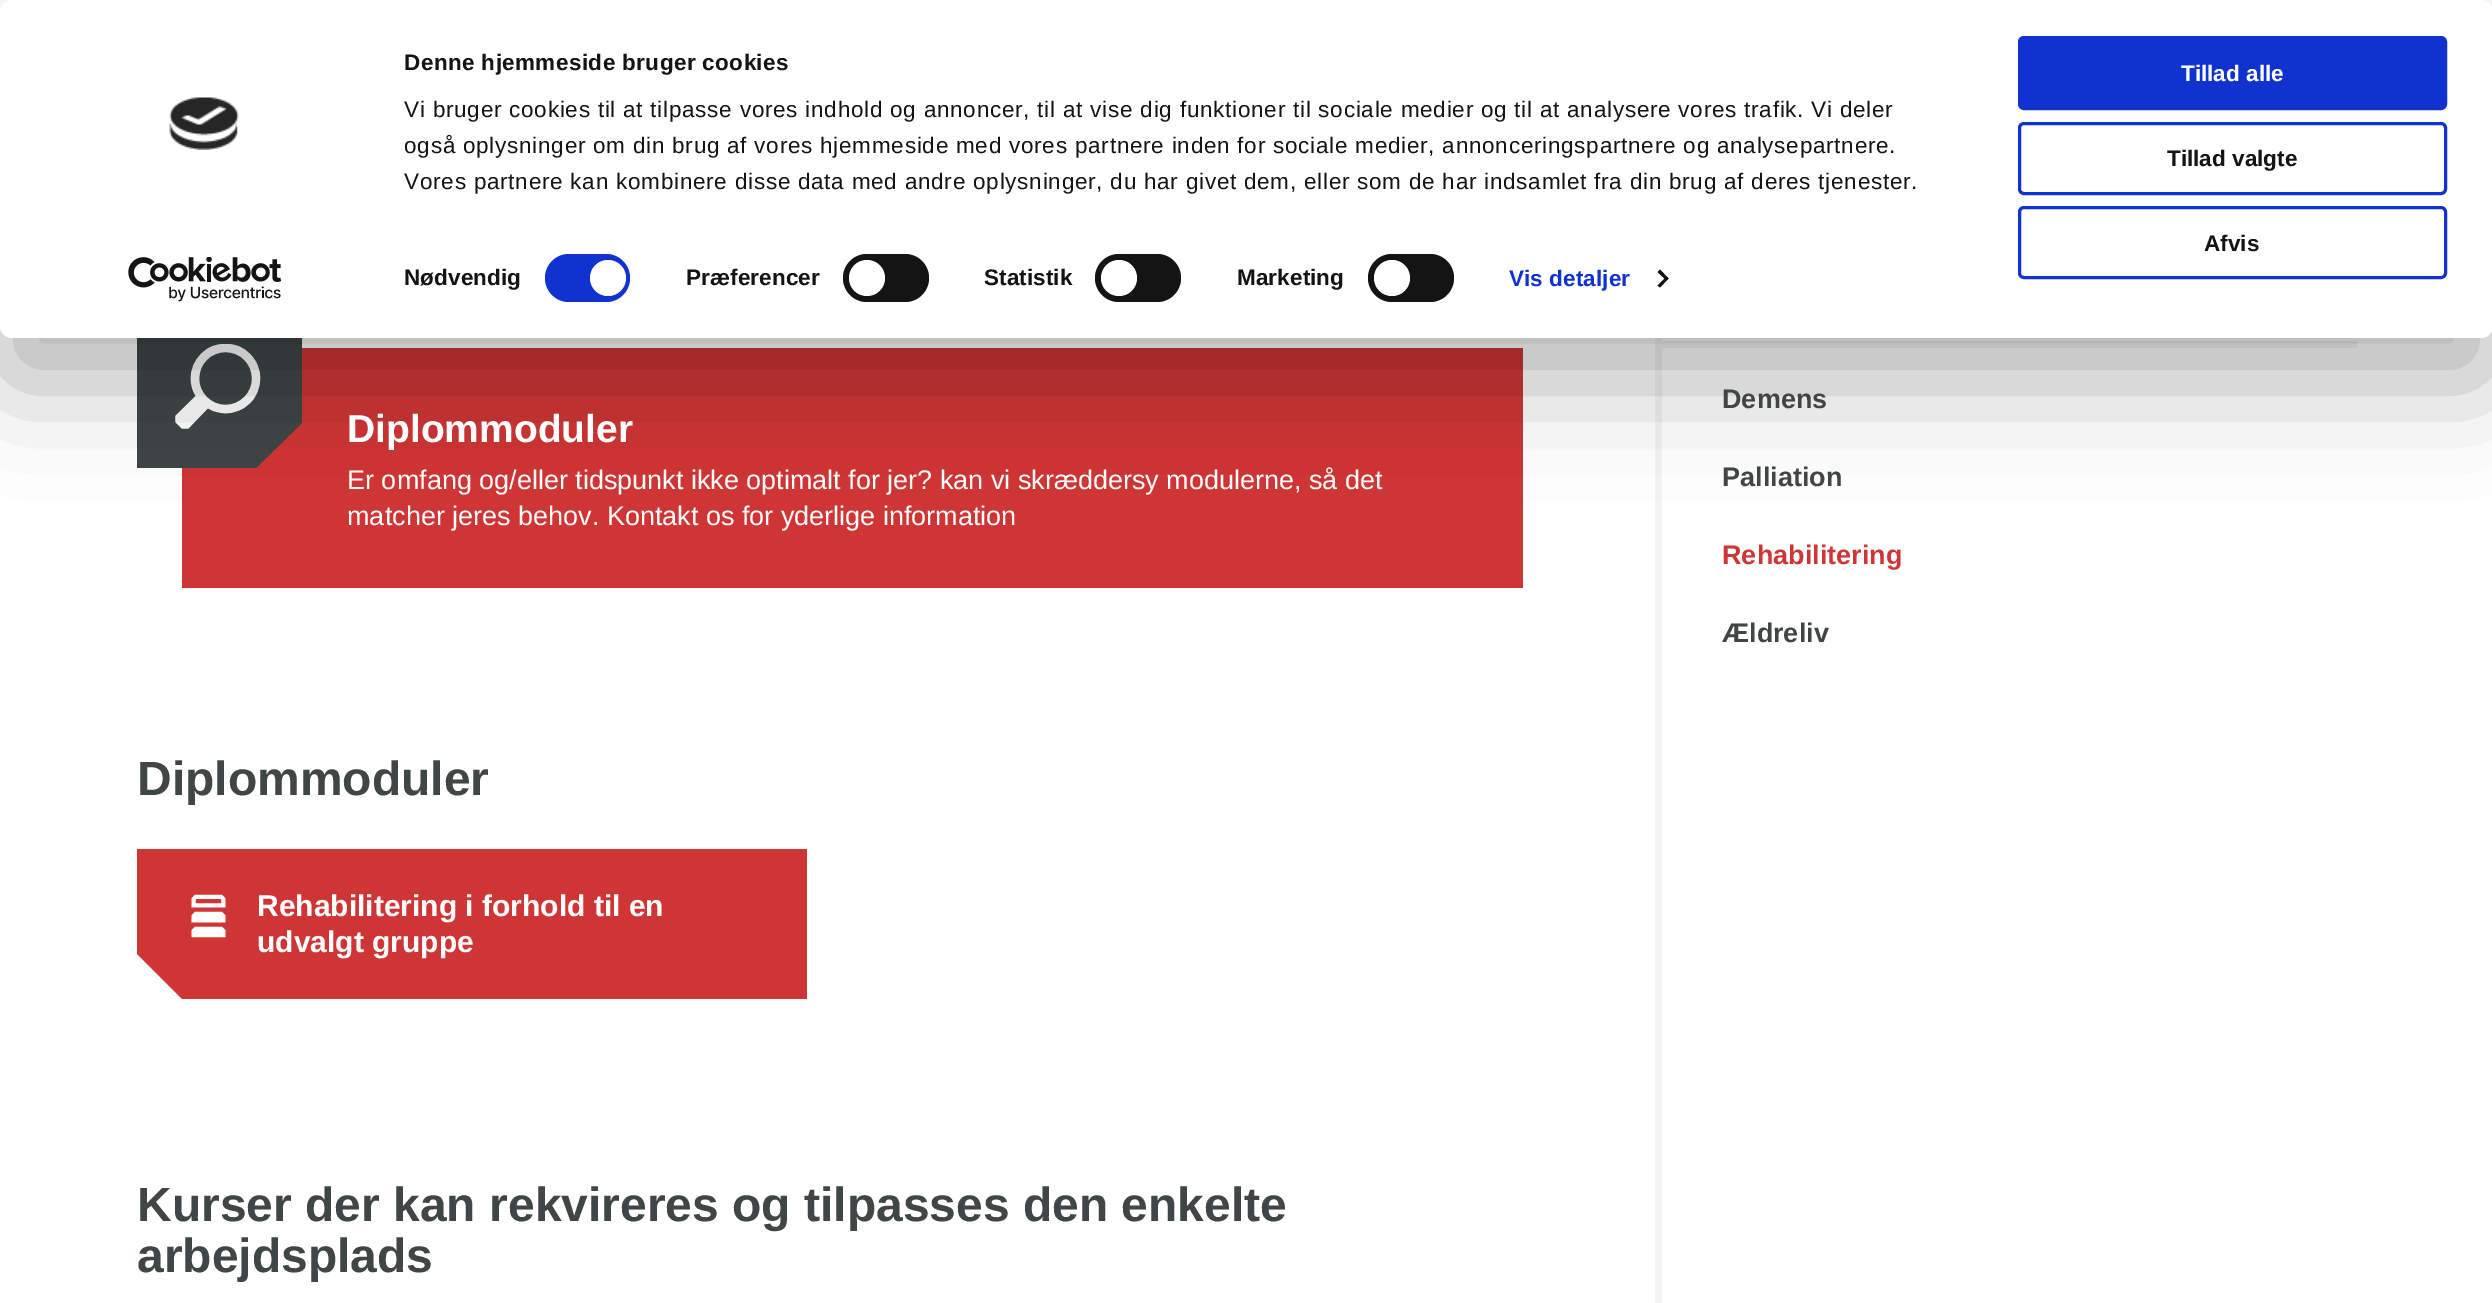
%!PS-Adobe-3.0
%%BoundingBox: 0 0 2492 1303
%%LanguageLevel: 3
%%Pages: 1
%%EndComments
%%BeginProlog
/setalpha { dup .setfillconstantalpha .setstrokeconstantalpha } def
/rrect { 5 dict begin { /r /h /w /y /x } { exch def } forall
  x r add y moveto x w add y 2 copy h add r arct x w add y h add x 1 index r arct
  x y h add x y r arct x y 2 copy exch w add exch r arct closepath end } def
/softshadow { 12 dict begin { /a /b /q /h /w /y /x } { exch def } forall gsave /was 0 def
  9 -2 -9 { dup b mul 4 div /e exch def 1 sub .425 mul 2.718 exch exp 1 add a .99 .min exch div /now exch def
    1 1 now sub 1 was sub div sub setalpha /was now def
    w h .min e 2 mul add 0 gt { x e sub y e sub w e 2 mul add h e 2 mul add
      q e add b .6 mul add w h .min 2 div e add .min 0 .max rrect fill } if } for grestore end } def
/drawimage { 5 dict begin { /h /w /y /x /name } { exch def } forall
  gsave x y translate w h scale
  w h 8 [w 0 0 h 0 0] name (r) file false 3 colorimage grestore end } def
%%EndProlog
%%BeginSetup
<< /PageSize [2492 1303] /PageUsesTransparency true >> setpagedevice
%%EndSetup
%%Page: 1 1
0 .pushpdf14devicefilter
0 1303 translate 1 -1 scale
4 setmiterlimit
1 setgray
0 0 2492 1303 rectfill
0.957 setgray
1655 338 7 965 rectfill
0.816 0.208 0.208 setrgbcolor
182 348 1341 240 rectfill
0.251 0.275 0.275 setrgbcolor
newpath 137 303 moveto 302 303 lineto 302 423 lineto 256 468 lineto 137 468 lineto closepath fill
(images/3.raw) 175 343 86 86 drawimage
0.957 setgray
1662 341 695 7 rectfill
0 setgray
0 45 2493 338 12 52.5 0.3 softshadow
1 setgray
0 0 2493 338 12 rrect fill
(images/1.raw) 169 97 70 53 drawimage
(images/2.raw) 128 257 154 45 drawimage
0.063 0.196 0.812 setrgbcolor
545 254 85 48 24 rrect fill
1 setgray
newpath 608 278 18 0 360 arc closepath fill
0.078 setgray
843 254 86 48 24 rrect fill
1 setgray
newpath 867 278 18 0 360 arc closepath fill
0.078 setgray
1095 254 86 48 24 rrect fill
1 setgray
newpath 1119 278 18 0 360 arc closepath fill
0.078 setgray
1368 254 86 48 24 rrect fill
1 setgray
newpath 1392 278 18 0 360 arc closepath fill
0.078 setgray
newpath 1660 269.5 moveto 1668.5 278.5 lineto 1666.5 280.5 lineto 1657.5 272 lineto closepath fill
newpath 1666.5 276.5 moveto 1668.5 278.5 lineto 1660 287.5 lineto 1657.5 285.5 lineto closepath fill
0.063 0.196 0.812 setrgbcolor
2019.5 37.5 426 71 4.5 rrect gsave fill grestore
3 setlinewidth
stroke
2019.5 123.5 426 70 4.5 rrect stroke
2019.5 207.5 426 70 4.5 rrect stroke
0.816 0.208 0.208 setrgbcolor
newpath 137 849 moveto 807 849 lineto 807 999 lineto 182 999 lineto 137 954 lineto closepath fill
(images/4.raw) 191 894 35 44 drawimage
/LiberationSans-Bold [22.5 0 0 -22.5 0 0] selectfont
0.078 setgray
404 70 moveto 0.4 0 (Denne hjemmeside bruger cookies) ashow
/LiberationSans-Regular [22.5 0 0 -22.5 0 0] selectfont
404 117 moveto 0.75 0 (Vi bruger cookies til at tilpasse vores indhold og annoncer, til at vise dig funktioner til sociale medier og til at analysere vores trafik. Vi deler) ashow
404 153 moveto 0.75 0 (også oplysninger om din brug af vores hjemmeside med vores partnere inden for sociale medier, annonceringspartnere og analysepartnere.) ashow
404 189 moveto 0.75 0 (Vores partnere kan kombinere disse data med andre oplysninger, du har givet dem, eller som de har indsamlet fra din brug af deres tjenester.) ashow
/LiberationSans-Bold [22.5 0 0 -22.5 0 0] selectfont
404 285 moveto 0.1 0 (Nødvendig) ashow
686 285 moveto 0.1 0 (Præferencer) ashow
984 285 moveto 0.1 0 (Statistik) ashow
1237 285 moveto 0.1 0 (Marketing) ashow
0.063 0.196 0.812 setrgbcolor
1509 286 moveto 0.1 0 (Vis detaljer) ashow
0.996 setgray
2181 81 moveto (Tillad alle) show
0.078 setgray
2167 166 moveto (Tillad valgte) show
2204 251 moveto (Afvis) show
/LiberationSans-Bold [39 0 0 -39 0 0] selectfont
0.996 setgray
347 442 moveto (Diplommoduler) show
/LiberationSans-Regular [27 0 0 -27 0 0] selectfont
347 489 moveto (Er omfang og/eller tidspunkt ikke optimalt for jer? kan vi skræddersy modulerne, så det) show
347 525 moveto (matcher jeres behov. Kontakt os for yderlige information) show
/LiberationSans-Bold [48 0 0 -48 0 0] selectfont
0.251 0.275 0.275 setrgbcolor
137 795 moveto (Diplommoduler) show
/LiberationSans-Bold [30 0 0 -30 0 0] selectfont
0.996 setgray
257 916 moveto (Rehabilitering i forhold til en) show
257 952 moveto (udvalgt gruppe) show
/LiberationSans-Bold [48 0 0 -48 0 0] selectfont
0.251 0.275 0.275 setrgbcolor
137 1221 moveto (Kurser der kan rekvireres og tilpasses den enkelte) show
137 1272 moveto (arbejdsplads) show
/LiberationSans-Bold [27 0 0 -27 0 0] selectfont
1722 408 moveto (Demens) show
1722 486 moveto (Palliation) show
0.816 0.208 0.208 setrgbcolor
1722 564 moveto (Rehabilitering) show
0.251 0.275 0.275 setrgbcolor
1722 642 moveto (Ældreliv) show
.poppdf14devicefilter showpage
%%EOF
